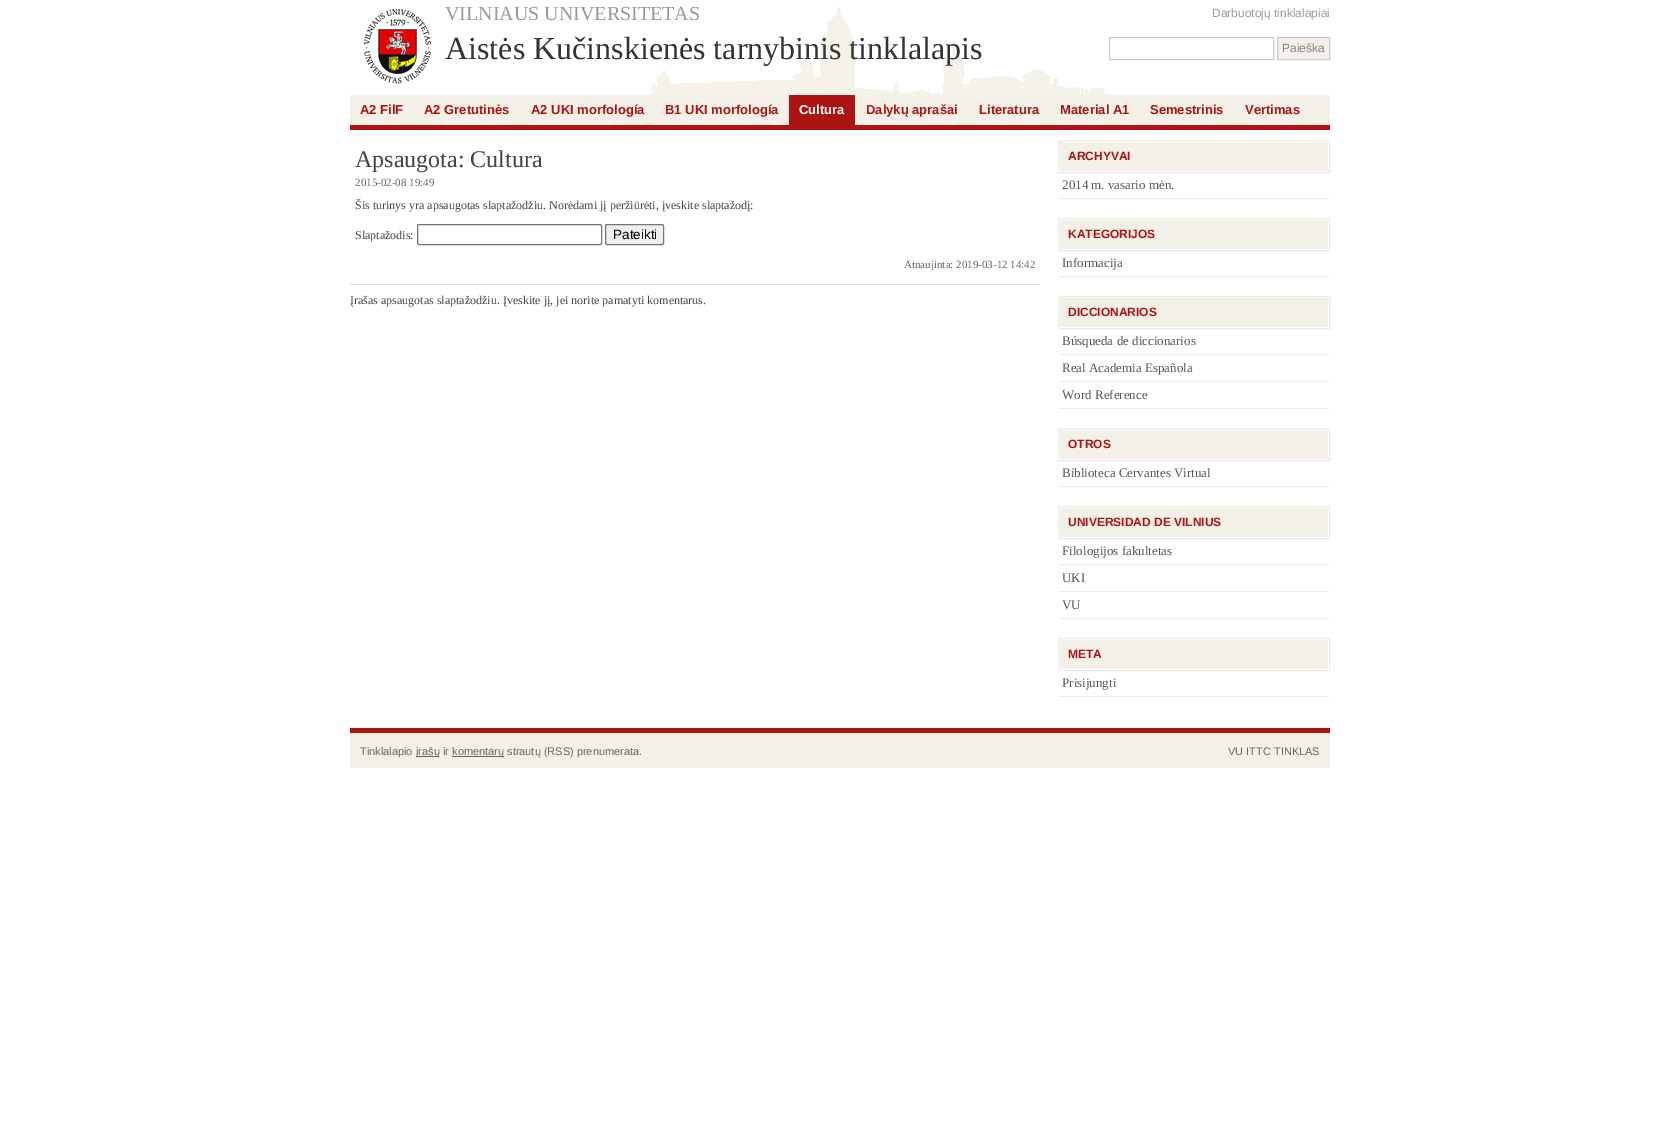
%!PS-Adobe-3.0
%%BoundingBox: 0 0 1680 1134
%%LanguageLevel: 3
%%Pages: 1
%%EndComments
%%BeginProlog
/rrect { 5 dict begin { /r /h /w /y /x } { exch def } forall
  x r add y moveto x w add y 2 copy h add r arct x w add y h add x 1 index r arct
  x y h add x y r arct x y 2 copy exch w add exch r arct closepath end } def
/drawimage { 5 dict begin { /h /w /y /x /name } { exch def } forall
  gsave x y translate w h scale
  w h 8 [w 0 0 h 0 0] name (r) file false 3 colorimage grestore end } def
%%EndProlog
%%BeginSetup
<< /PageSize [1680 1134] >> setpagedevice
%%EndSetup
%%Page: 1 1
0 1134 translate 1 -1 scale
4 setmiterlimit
1 setgray
0 0 1680 1134 rectfill
(images/1.raw) 651 7 458 88 drawimage
(images/2.raw) 364 9 67 75 drawimage
0.808 0.8 0.773 setrgbcolor
1109.5 37.5 164 22 rectstroke
0.957 0.945 0.914 setrgbcolor
newpath 1277.5 37.5 moveto 1329.5 37.5 lineto 1329.5 59.5 lineto 1277.5 59.5 lineto closepath gsave fill grestore
0.808 0.8 0.773 setrgbcolor
stroke
0.953 0.945 0.906 setrgbcolor
350 95 980 30 rectfill
0.675 0.078 0.075 setrgbcolor
350 125 980 5 rectfill
789 95 66 30 rectfill
0.463 setgray
417.5 224.5 184 20 1.5 rrect stroke
0.937 setgray
605.5 224.5 58 20 1.5 rrect gsave fill grestore
0.463 setgray
stroke
0.867 setgray
350 284 690 1 rectfill
0.953 0.945 0.906 setrgbcolor
1060 142 268 29 rectfill
0.922 setgray
1058.5 140.5 271 32 rectstroke
1059 198 270 1 rectfill
0.953 0.945 0.906 setrgbcolor
1060 220 268 29 rectfill
0.922 setgray
1058.5 218.5 271 32 rectstroke
1059 276 270 1 rectfill
0.953 0.945 0.906 setrgbcolor
1060 298 268 29 rectfill
0.922 setgray
1058.5 296.5 271 32 rectstroke
1059 354 270 1 rectfill
1059 381 270 1 rectfill
1059 408 270 1 rectfill
0.953 0.945 0.906 setrgbcolor
1060 430 268 29 rectfill
0.922 setgray
1058.5 428.5 271 32 rectstroke
1059 486 270 1 rectfill
0.953 0.945 0.906 setrgbcolor
1060 508 268 29 rectfill
0.922 setgray
1058.5 506.5 271 32 rectstroke
1059 564 270 1 rectfill
1059 591 270 1 rectfill
1059 618 270 1 rectfill
0.953 0.945 0.906 setrgbcolor
1060 640 268 29 rectfill
0.922 setgray
1058.5 638.5 271 32 rectstroke
1059 696 270 1 rectfill
0.953 0.945 0.906 setrgbcolor
350 733 980 35 rectfill
0.675 0.078 0.075 setrgbcolor
350 728 980 5 rectfill
0.4 setgray
416 756 23 1 rectfill
452 756 52 1 rectfill
/LiberationSerif-Regular [20 0 0 -20 0 0] selectfont
0.6 setgray
445 20 moveto (VILNIAUS UNIVERSITETAS) show
/LiberationSans-Regular [12 0 0 -12 0 0] selectfont
1212 17 moveto (Darbuotojų tinklalapiai) show
/LiberationSerif-Regular [32 0 0 -32 0 0] selectfont
0.2 setgray
445 59 moveto (Aistės Kučinskienės tarnybinis tinklalapis) show
/LiberationSans-Regular [12 0 0 -12 0 0] selectfont
0.518 0.514 0.498 setrgbcolor
1282 52 moveto (Paieška) show
/LiberationSans-Bold [13 0 0 -13 0 0] selectfont
0.675 0.078 0.075 setrgbcolor
360 114 moveto (A2 FilF) show
424 114 moveto (A2 Gretutinės) show
531 114 moveto (A2 UKI morfología) show
665 114 moveto (B1 UKI morfología) show
1 setgray
799 114 moveto (Cultura) show
0.675 0.078 0.075 setrgbcolor
866 114 moveto (Dalykų aprašai) show
979 114 moveto (Literatura) show
1060 114 moveto (Material A1) show
1150 114 moveto (Semestrinis) show
1245 114 moveto (Vertimas) show
/LiberationSerif-Regular [24 0 0 -24 0 0] selectfont
0.267 setgray
355 167 moveto (Apsaugota: Cultura) show
/LiberationSerif-Regular [11 0 0 -11 0 0] selectfont
0.4 setgray
355 186 moveto (2015-02-08 19:49) show
/LiberationSerif-Regular [12 0 0 -12 0 0] selectfont
0.267 setgray
355 209 moveto (Šis turinys yra apsaugotas slaptažodžiu. Norėdami jį peržiūrėti, įveskite slaptažodį:) show
355 239 moveto (Slaptažodis:) show
/LiberationSans-Regular [13.5 0 0 -13.5 0 0] selectfont
0 setgray
613 239 moveto (Pateikti) show
/LiberationSerif-Regular [11 0 0 -11 0 0] selectfont
0.4 setgray
904 268 moveto (Atnaujinta: 2019-03-12 14:42) show
/LiberationSerif-Regular [12 0 0 -12 0 0] selectfont
0.267 setgray
350 304 moveto (Įrašas apsaugotas slaptažodžiu. Įveskite jį, jei norite pamatyti komentarus.) show
/LiberationSans-Bold [12 0 0 -12 0 0] selectfont
0.675 0.078 0.075 setrgbcolor
1068 160 moveto (ARCHYVAI) show
/LiberationSerif-Regular [13 0 0 -13 0 0] selectfont
0.333 setgray
1062 189 moveto (2014 m. vasario mėn.) show
/LiberationSans-Bold [12 0 0 -12 0 0] selectfont
0.675 0.078 0.075 setrgbcolor
1068 238 moveto (KATEGORIJOS) show
/LiberationSerif-Regular [13 0 0 -13 0 0] selectfont
0.333 setgray
1062 267 moveto (Informacija) show
/LiberationSans-Bold [12 0 0 -12 0 0] selectfont
0.675 0.078 0.075 setrgbcolor
1068 316 moveto (DICCIONARIOS) show
/LiberationSerif-Regular [13 0 0 -13 0 0] selectfont
0.333 setgray
1062 345 moveto (Búsqueda de diccionarios) show
1062 372 moveto (Real Academia Española) show
1062 399 moveto (Word Reference) show
/LiberationSans-Bold [12 0 0 -12 0 0] selectfont
0.675 0.078 0.075 setrgbcolor
1068 448 moveto (OTROS) show
/LiberationSerif-Regular [13 0 0 -13 0 0] selectfont
0.333 setgray
1062 477 moveto (Biblioteca Cervantes Virtual) show
/LiberationSans-Bold [12 0 0 -12 0 0] selectfont
0.675 0.078 0.075 setrgbcolor
1068 526 moveto (UNIVERSIDAD DE VILNIUS) show
/LiberationSerif-Regular [13 0 0 -13 0 0] selectfont
0.333 setgray
1062 555 moveto (Filologijos fakultetas) show
1062 582 moveto (UKI) show
1062 609 moveto (VU) show
/LiberationSans-Bold [12 0 0 -12 0 0] selectfont
0.675 0.078 0.075 setrgbcolor
1068 658 moveto (META) show
/LiberationSerif-Regular [13 0 0 -13 0 0] selectfont
0.333 setgray
1062 687 moveto (Prisijungti) show
/LiberationSans-Regular [11 0 0 -11 0 0] selectfont
0.4 setgray
360 755 moveto (Tinklalapio) show
416 755 moveto (įrašų ir) show
452 755 moveto (komentarų strautų \(RSS\) prenumerata.) show
1228 755 moveto (VU ITTC TINKLAS) show
showpage
%%EOF
